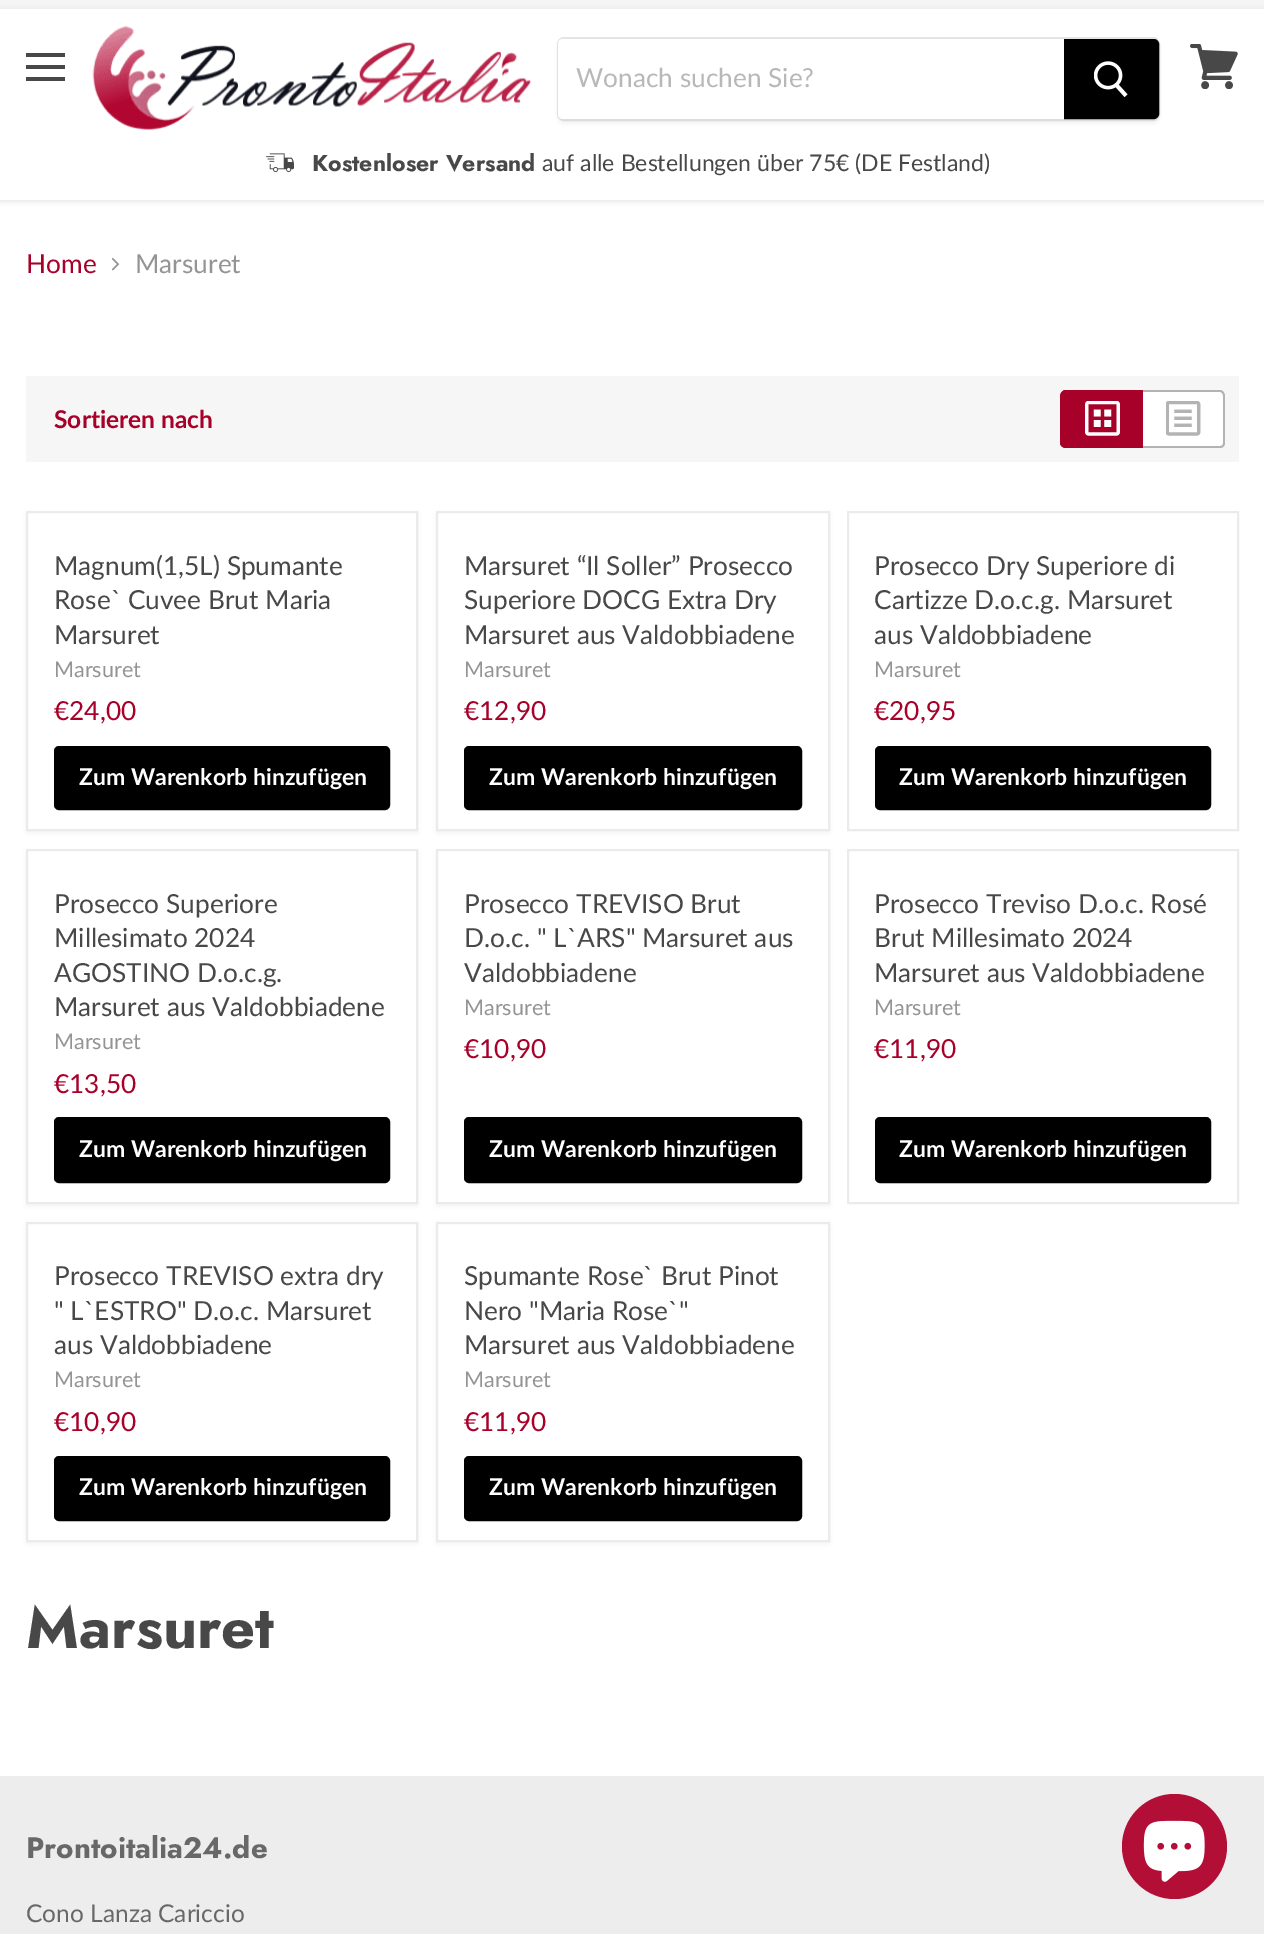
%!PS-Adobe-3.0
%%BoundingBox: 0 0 1264 1934
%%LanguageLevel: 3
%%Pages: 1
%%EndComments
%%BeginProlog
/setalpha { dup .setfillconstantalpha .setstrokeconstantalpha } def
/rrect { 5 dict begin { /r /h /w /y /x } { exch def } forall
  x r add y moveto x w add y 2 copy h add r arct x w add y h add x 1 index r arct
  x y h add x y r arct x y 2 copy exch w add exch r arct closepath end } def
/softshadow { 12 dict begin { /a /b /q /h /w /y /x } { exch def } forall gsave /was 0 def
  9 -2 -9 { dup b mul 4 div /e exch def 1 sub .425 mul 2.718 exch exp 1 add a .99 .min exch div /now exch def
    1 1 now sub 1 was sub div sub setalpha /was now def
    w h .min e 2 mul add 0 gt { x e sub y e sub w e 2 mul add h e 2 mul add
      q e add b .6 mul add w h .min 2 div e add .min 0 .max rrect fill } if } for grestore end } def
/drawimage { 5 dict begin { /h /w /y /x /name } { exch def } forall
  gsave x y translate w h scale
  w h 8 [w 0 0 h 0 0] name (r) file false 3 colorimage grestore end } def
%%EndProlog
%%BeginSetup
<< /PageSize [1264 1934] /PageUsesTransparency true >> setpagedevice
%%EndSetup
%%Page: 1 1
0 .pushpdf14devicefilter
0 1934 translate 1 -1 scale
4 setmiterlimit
1 setgray
0 0 1264 1934 rectfill
0.961 setgray
0 0 1264 9 rectfill
0.502 setgray
0 11 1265 190 0 3.5 0.25 softshadow
1 setgray
0 9 1264 191 rectfill
0.282 setgray
26 53 39 4 rectfill
26 65 39 4 rectfill
26 77 39 4 rectfill
(images/1.raw) 92 26 439 104 drawimage
0.502 setgray
557 40 603 84 7 2.5 0.11 softshadow
0.2 setalpha
2 setlinewidth
558 38 601 82 6 rrect stroke
1 setalpha
1 setgray
newpath 563 39 moveto 1064 39 lineto 1064 119 lineto 563 119 lineto 560 119 558 117 558 114 curveto 558 44 lineto 558 41 560 39 563 39 curveto closepath fill
0 setgray
newpath 1065 40 moveto 1154 40 lineto 1156 40 1158 42 1158 44 curveto 1158 114 lineto 1158 116 1156 118 1154 118 curveto 1065 118 lineto closepath gsave fill grestore
stroke
(images/2.raw) 1094 61 34 37 drawimage
(images/3.raw) 266 153 28 20 drawimage
(images/4.raw) 1190 44 48 45 drawimage
(images/5.raw) 111 257 9 14 drawimage
0.965 setgray
26 376 1213 86 rectfill
0.655 0.004 0.165 setrgbcolor
newpath 1066 390 moveto 1143 390 lineto 1143 448 lineto 1066 448 lineto 1063 448 1061 446 1061 443 curveto 1061 395 lineto 1061 392 1063 390 1066 390 curveto closepath fill
newpath 1066 390 moveto 1143 390 lineto 1143 448 lineto 1066 448 lineto 1063 448 1060 446 1060 443 curveto 1060 396 lineto 1060 393 1063 390 1066 390 curveto closepath 1066 392 moveto 1143 392 lineto 1143 446 lineto 1066 446 lineto 1064 446 1062 445 1062 443 curveto 1062 396 lineto 1062 394 1064 392 1066 392 curveto closepath eofill
(images/6.raw) 1085 401 35 35 drawimage
1 setgray
newpath 1143 390 moveto 1220 390 lineto 1223 390 1225 392 1225 395 curveto 1225 443 lineto 1225 446 1223 448 1220 448 curveto 1143 448 lineto closepath fill
0.702 setgray
newpath 1143 390 moveto 1220 390 lineto 1223 390 1225 393 1225 396 curveto 1225 443 lineto 1225 446 1223 448 1220 448 curveto 1143 448 lineto closepath 1143 392 moveto 1220 392 lineto 1222 392 1223 394 1223 396 curveto 1223 443 lineto 1223 445 1222 446 1220 446 curveto 1143 446 lineto closepath eofill
(images/7.raw) 1166 401 35 35 drawimage
0.502 setgray
26 513 392 320 0 3.5 0.11 softshadow
1 setgray
newpath 27 512 moveto 417 512 lineto 417 830 lineto 27 830 lineto closepath gsave fill grestore
0.922 setgray
stroke
0 setgray
55 747 334 62 4 rrect gsave fill grestore
stroke
0.502 setgray
436 513 394 320 0 3.5 0.11 softshadow
1 setgray
newpath 437 512 moveto 829 512 lineto 829 830 lineto 437 830 lineto closepath gsave fill grestore
0.922 setgray
stroke
0 setgray
465 747 336 62 4 rrect gsave fill grestore
stroke
0.922 setgray
848 512 390 318 rectstroke
0 setgray
876 747 334 62 4 rrect gsave fill grestore
stroke
0.502 setgray
26 851 392 355 0 3.5 0.11 softshadow
1 setgray
newpath 27 850 moveto 417 850 lineto 417 1203 lineto 27 1203 lineto closepath gsave fill grestore
0.922 setgray
stroke
0 setgray
55 1118 334 64 4 rrect gsave fill grestore
stroke
0.502 setgray
436 851 394 355 0 3.5 0.11 softshadow
1 setgray
newpath 437 850 moveto 829 850 lineto 829 1203 lineto 437 1203 lineto closepath gsave fill grestore
0.922 setgray
stroke
0 setgray
465 1118 336 64 4 rrect gsave fill grestore
stroke
0.922 setgray
848 850 390 353 rectstroke
0 setgray
876 1118 334 64 4 rrect gsave fill grestore
stroke
0.502 setgray
26 1223 392 321 0 3.5 0.11 softshadow
1 setgray
newpath 27 1223 moveto 417 1223 lineto 417 1541 lineto 27 1541 lineto closepath gsave fill grestore
0.922 setgray
stroke
0 setgray
55 1457 334 63 4 rrect gsave fill grestore
stroke
0.502 setgray
436 1223 394 321 0 3.5 0.11 softshadow
1 setgray
newpath 437 1223 moveto 829 1223 lineto 829 1541 lineto 437 1541 lineto closepath gsave fill grestore
0.922 setgray
stroke
0 setgray
465 1457 336 63 4 rrect gsave fill grestore
stroke
0.929 setgray
0 1776 1264 158 rectfill
0.702 0.055 0.212 setrgbcolor
newpath 1174.5 1846.5 52.5 0 360 arc closepath fill
(images/8.raw) 1143 1820 62 62 drawimage
/Lato-Regular [26.25 0 0 -26.25 0 0] selectfont
0.722 setgray
576 87 moveto (Wonach suchen Sie?) show
/Jost-Bold [23 0 0 -23 0 0] selectfont
0.282 setgray
312 171 moveto (Kostenloser Versand) show
/Lato-Regular [23 0 0 -23 0 0] selectfont
542 171 moveto (auf alle Bestellungen über 75€ \(DE Festland\)) show
/Lato-Regular [26.25 0 0 -26.25 0 0] selectfont
0.655 0.004 0.165 setrgbcolor
26 273 moveto (Home) show
0.58 setgray
135 273 moveto (Marsuret) show
/Lato-Bold [24.5 0 0 -24.5 0 0] selectfont
0.655 0.004 0.165 setrgbcolor
54 428 moveto (Sortieren nach) show
/Lato-Regular [26.25 0 0 -26.25 0 0] selectfont
0.282 setgray
54 575 moveto (Magnum\(1,5L\) Spumante) show
54 609 moveto (Rose` Cuvee Brut Maria) show
54 644 moveto (Marsuret) show
/Lato-Regular [21.5 0 0 -21.5 0 0] selectfont
0.58 setgray
54 677 moveto (Marsuret) show
/Lato-Regular [26.25 0 0 -26.25 0 0] selectfont
0.655 0.004 0.165 setrgbcolor
54 720 moveto (€24,00) show
/Lato-Bold [23 0 0 -23 0 0] selectfont
1 setgray
79 785 moveto (Zum Warenkorb hinzufügen) show
/Lato-Regular [26.25 0 0 -26.25 0 0] selectfont
0.282 setgray
464 575 moveto (Marsuret “Il Soller” Prosecco) show
464 609 moveto (Superiore DOCG Extra Dry) show
464 644 moveto (Marsuret aus Valdobbiadene) show
/Lato-Regular [21.5 0 0 -21.5 0 0] selectfont
0.58 setgray
464 677 moveto (Marsuret) show
/Lato-Regular [26.25 0 0 -26.25 0 0] selectfont
0.655 0.004 0.165 setrgbcolor
464 720 moveto (€12,90) show
/Lato-Bold [23 0 0 -23 0 0] selectfont
1 setgray
489 785 moveto (Zum Warenkorb hinzufügen) show
/Lato-Regular [26.25 0 0 -26.25 0 0] selectfont
0.282 setgray
874 575 moveto (Prosecco Dry Superiore di) show
874 609 moveto (Cartizze D.o.c.g. Marsuret) show
874 644 moveto (aus Valdobbiadene) show
/Lato-Regular [21.5 0 0 -21.5 0 0] selectfont
0.58 setgray
874 677 moveto (Marsuret) show
/Lato-Regular [26.25 0 0 -26.25 0 0] selectfont
0.655 0.004 0.165 setrgbcolor
874 720 moveto (€20,95) show
/Lato-Bold [23 0 0 -23 0 0] selectfont
1 setgray
899 785 moveto (Zum Warenkorb hinzufügen) show
/Lato-Regular [26.25 0 0 -26.25 0 0] selectfont
0.282 setgray
54 913 moveto (Prosecco Superiore) show
54 947 moveto (Millesimato 2024) show
54 982 moveto (AGOSTINO D.o.c.g.) show
54 1016 moveto (Marsuret aus Valdobbiadene) show
/Lato-Regular [21.5 0 0 -21.5 0 0] selectfont
0.58 setgray
54 1049 moveto (Marsuret) show
/Lato-Regular [26.25 0 0 -26.25 0 0] selectfont
0.655 0.004 0.165 setrgbcolor
54 1093 moveto (€13,50) show
/Lato-Bold [23 0 0 -23 0 0] selectfont
1 setgray
79 1157 moveto (Zum Warenkorb hinzufügen) show
/Lato-Regular [26.25 0 0 -26.25 0 0] selectfont
0.282 setgray
464 913 moveto (Prosecco TREVISO Brut) show
464 947 moveto (D.o.c. " L`ARS" Marsuret aus) show
464 982 moveto (Valdobbiadene) show
/Lato-Regular [21.5 0 0 -21.5 0 0] selectfont
0.58 setgray
464 1015 moveto (Marsuret) show
/Lato-Regular [26.25 0 0 -26.25 0 0] selectfont
0.655 0.004 0.165 setrgbcolor
464 1058 moveto (€10,90) show
/Lato-Bold [23 0 0 -23 0 0] selectfont
1 setgray
489 1157 moveto (Zum Warenkorb hinzufügen) show
/Lato-Regular [26.25 0 0 -26.25 0 0] selectfont
0.282 setgray
874 913 moveto (Prosecco Treviso D.o.c. Rosé) show
874 947 moveto (Brut Millesimato 2024) show
874 982 moveto (Marsuret aus Valdobbiadene) show
/Lato-Regular [21.5 0 0 -21.5 0 0] selectfont
0.58 setgray
874 1015 moveto (Marsuret) show
/Lato-Regular [26.25 0 0 -26.25 0 0] selectfont
0.655 0.004 0.165 setrgbcolor
874 1058 moveto (€11,90) show
/Lato-Bold [23 0 0 -23 0 0] selectfont
1 setgray
899 1157 moveto (Zum Warenkorb hinzufügen) show
/Lato-Regular [26.25 0 0 -26.25 0 0] selectfont
0.282 setgray
54 1285 moveto (Prosecco TREVISO extra dry) show
54 1320 moveto (" L`ESTRO" D.o.c. Marsuret) show
54 1354 moveto (aus Valdobbiadene) show
/Lato-Regular [21.5 0 0 -21.5 0 0] selectfont
0.58 setgray
54 1387 moveto (Marsuret) show
/Lato-Regular [26.25 0 0 -26.25 0 0] selectfont
0.655 0.004 0.165 setrgbcolor
54 1431 moveto (€10,90) show
/Lato-Bold [23 0 0 -23 0 0] selectfont
1 setgray
79 1495 moveto (Zum Warenkorb hinzufügen) show
/Lato-Regular [26.25 0 0 -26.25 0 0] selectfont
0.282 setgray
464 1285 moveto (Spumante Rose` Brut Pinot) show
464 1320 moveto (Nero "Maria Rose`") show
464 1354 moveto (Marsuret aus Valdobbiadene) show
/Lato-Regular [21.5 0 0 -21.5 0 0] selectfont
0.58 setgray
464 1387 moveto (Marsuret) show
/Lato-Regular [26.25 0 0 -26.25 0 0] selectfont
0.655 0.004 0.165 setrgbcolor
464 1431 moveto (€11,90) show
/Lato-Bold [23 0 0 -23 0 0] selectfont
1 setgray
489 1495 moveto (Zum Warenkorb hinzufügen) show
/Jost-Bold [59.5 0 0 -59.5 0 0] selectfont
0.282 setgray
26 1648 moveto (Marsuret) show
/Jost-Bold [29.5 0 0 -29.5 0 0] selectfont
0.408 setgray
26 1858 moveto (Prontoitalia24.de) show
/Lato-Regular [24.5 0 0 -24.5 0 0] selectfont
26 1922 moveto (Cono Lanza Cariccio) show
.poppdf14devicefilter showpage
%%EOF
